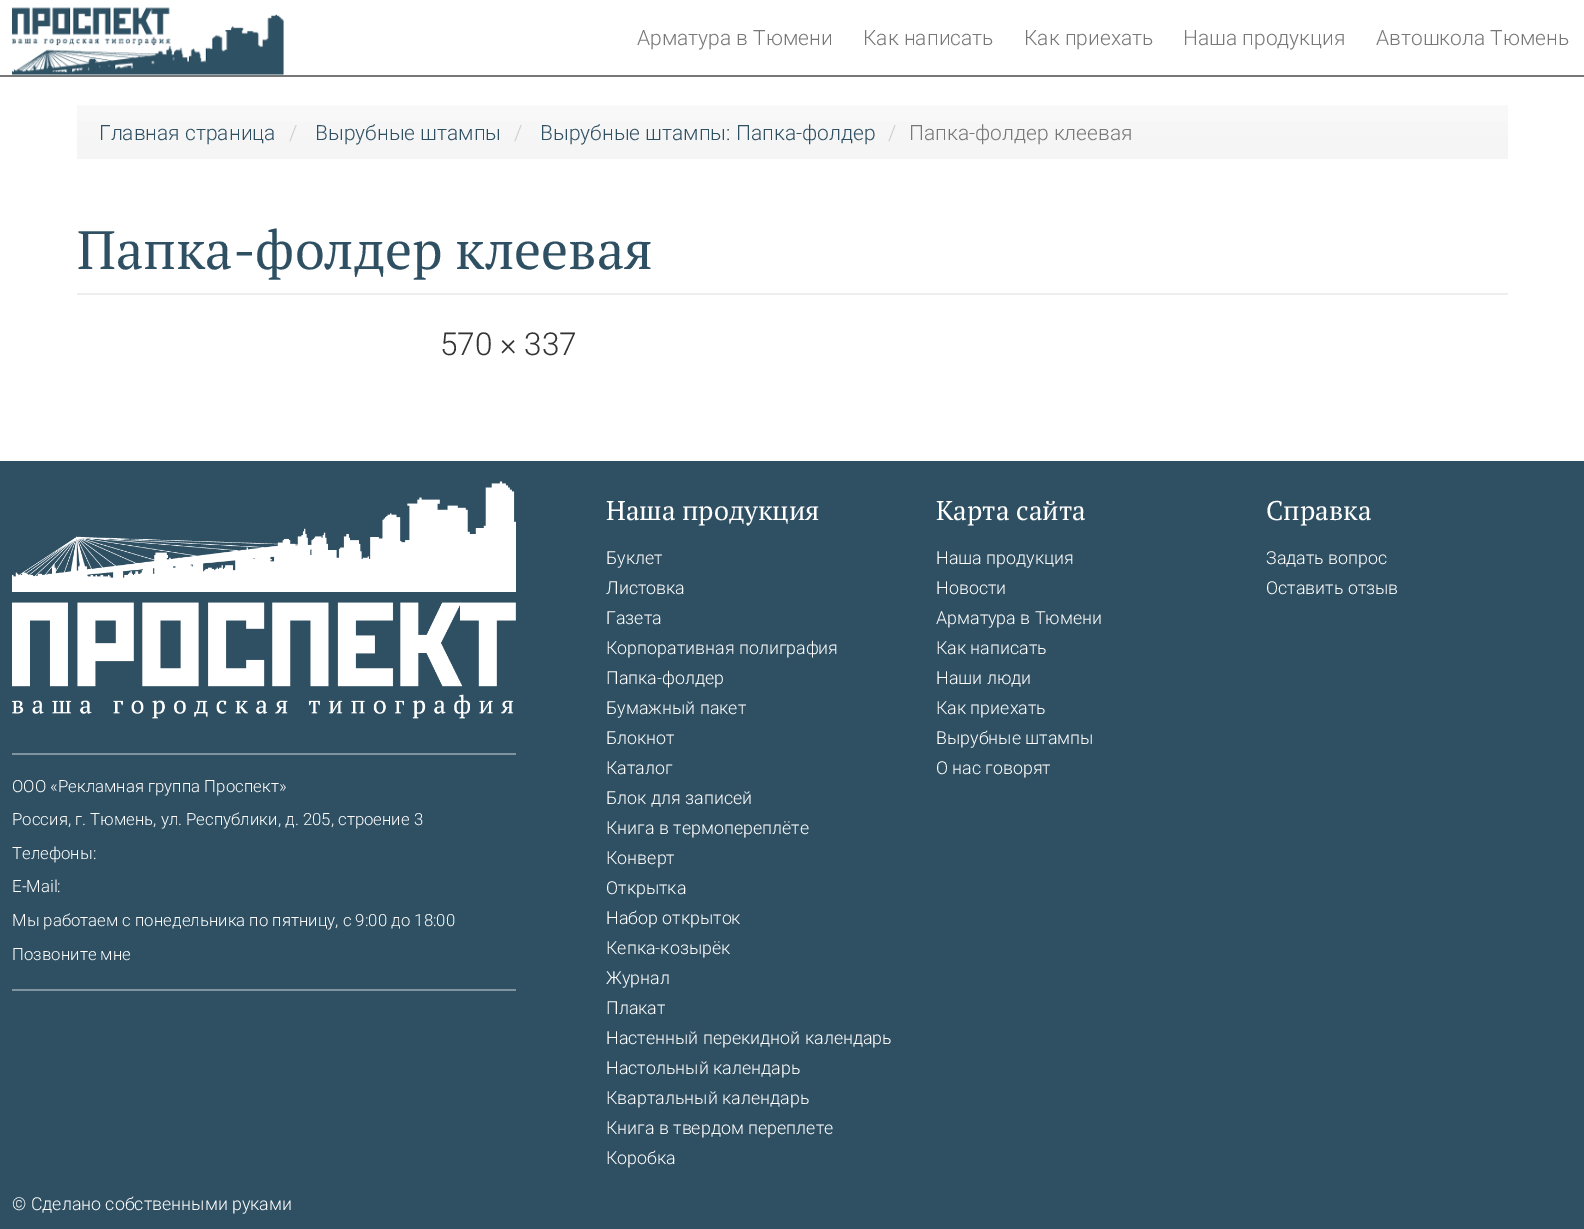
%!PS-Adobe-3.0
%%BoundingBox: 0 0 1584 1229
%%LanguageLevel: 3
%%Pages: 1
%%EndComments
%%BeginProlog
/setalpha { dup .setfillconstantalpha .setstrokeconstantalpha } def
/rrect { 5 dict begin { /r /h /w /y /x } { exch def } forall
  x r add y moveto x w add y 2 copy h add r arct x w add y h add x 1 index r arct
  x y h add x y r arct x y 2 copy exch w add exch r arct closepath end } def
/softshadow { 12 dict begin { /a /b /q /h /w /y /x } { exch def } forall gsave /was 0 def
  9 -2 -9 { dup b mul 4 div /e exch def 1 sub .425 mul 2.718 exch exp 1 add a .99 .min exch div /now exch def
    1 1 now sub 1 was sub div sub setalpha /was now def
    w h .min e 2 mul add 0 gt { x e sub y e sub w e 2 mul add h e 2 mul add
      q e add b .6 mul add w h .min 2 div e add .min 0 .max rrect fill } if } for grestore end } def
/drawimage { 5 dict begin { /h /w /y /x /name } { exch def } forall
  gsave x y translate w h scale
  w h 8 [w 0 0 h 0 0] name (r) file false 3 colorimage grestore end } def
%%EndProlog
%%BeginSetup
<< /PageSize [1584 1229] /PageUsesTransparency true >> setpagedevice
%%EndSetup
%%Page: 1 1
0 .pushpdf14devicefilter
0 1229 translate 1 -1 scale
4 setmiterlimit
1 setgray
0 0 1584 1229 rectfill
0.961 setgray
77 105 1431 54 rectfill
gsave
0 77 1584 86 rectclip
1 setgray
0 21 1584 77 0 31.5 1 softshadow
grestore
0.467 setgray
0 75 1584 2 rectfill
(images/1.raw) 12 7 272 68 drawimage
0.933 setgray
77 293 1431 2 rectfill
0.184 0.314 0.388 setrgbcolor
0 461 1584 768 rectfill
(images/2.raw) 12 481 504 238 drawimage
0.498 0.58 0.627 setrgbcolor
12 753 504 2 rectfill
12 989 504 2 rectfill
/Roboto-Light [21 0 0 -21 0 0] selectfont
0.467 setgray
637 45 moveto (Арматура в Тюмени) show
863 45 moveto (Как написать) show
1024 45 moveto (Как приехать) show
1183 45 moveto (Наша продукция) show
1376 45 moveto (Автошкола Тюмень) show
0.184 0.314 0.388 setrgbcolor
99 140 moveto (Главная страница) show
0.8 setgray
289 140 moveto (/) show
0.184 0.314 0.388 setrgbcolor
315 140 moveto (Вырубные штампы) show
0.8 setgray
514 140 moveto (/) show
0.184 0.314 0.388 setrgbcolor
540 140 moveto (Вырубные штампы: Папка-фолдер) show
0.8 setgray
888 140 moveto (/) show
0.467 setgray
909 140 moveto (Папка-фолдер клеевая) show
/PTSerif-Regular [54 0 0 -54 0 0] selectfont
0.184 0.314 0.388 setrgbcolor
77 269 moveto (Папка-фолдер клеевая) show
/Roboto-Light [31.5 0 0 -31.5 0 0] selectfont
0.2 setgray
440 355 moveto (570 × 337) show
/Roboto-Light [16.8 0 0 -16.8 0 0] selectfont
1 setgray
12 792 moveto (ООО «Рекламная группа Проспект») show
12 825 moveto (Россия, г. Тюмень, ул. Республики, д. 205, строение 3) show
12 859 moveto (Телефоны:) show
12 892 moveto (E-Mail:) show
12 926 moveto (Мы работаем с понедельника по пятницу, с 9:00 до 18:00) show
12 960 moveto (Позвоните мне) show
/PTSerif-Regular [27 0 0 -27 0 0] selectfont
606 520 moveto (Наша продукция) show
/Roboto-Light [17.8 0 0 -17.8 0 0] selectfont
606 564 moveto (Буклет) show
606 594 moveto (Листовка) show
606 624 moveto (Газета) show
606 654 moveto (Корпоративная полиграфия) show
606 684 moveto (Папка-фолдер) show
606 714 moveto (Бумажный пакет) show
606 744 moveto (Блокнот) show
606 774 moveto (Каталог) show
606 804 moveto (Блок для записей) show
606 834 moveto (Книга в термопереплёте) show
606 864 moveto (Конверт) show
606 894 moveto (Открытка) show
606 924 moveto (Набор открыток) show
606 954 moveto (Кепка-козырёк) show
606 984 moveto (Журнал) show
606 1014 moveto (Плакат) show
606 1044 moveto (Настенный перекидной календарь) show
606 1074 moveto (Настольный календарь) show
606 1104 moveto (Квартальный календарь) show
606 1134 moveto (Книга в твердом переплете) show
606 1164 moveto (Коробка) show
/PTSerif-Regular [27 0 0 -27 0 0] selectfont
936 520 moveto (Карта сайта) show
/Roboto-Light [17.8 0 0 -17.8 0 0] selectfont
936 564 moveto (Наша продукция) show
936 594 moveto (Новости) show
936 624 moveto (Арматура в Тюмени) show
936 654 moveto (Как написать) show
936 684 moveto (Наши люди) show
936 714 moveto (Как приехать) show
936 744 moveto (Вырубные штампы) show
936 774 moveto (О нас говорят) show
/PTSerif-Regular [27 0 0 -27 0 0] selectfont
1266 520 moveto (Справка) show
/Roboto-Light [17.8 0 0 -17.8 0 0] selectfont
1266 564 moveto (Задать вопрос) show
1266 594 moveto (Оставить отзыв) show
12 1210 moveto (© Сделано собственными руками) show
.poppdf14devicefilter showpage
%%EOF
